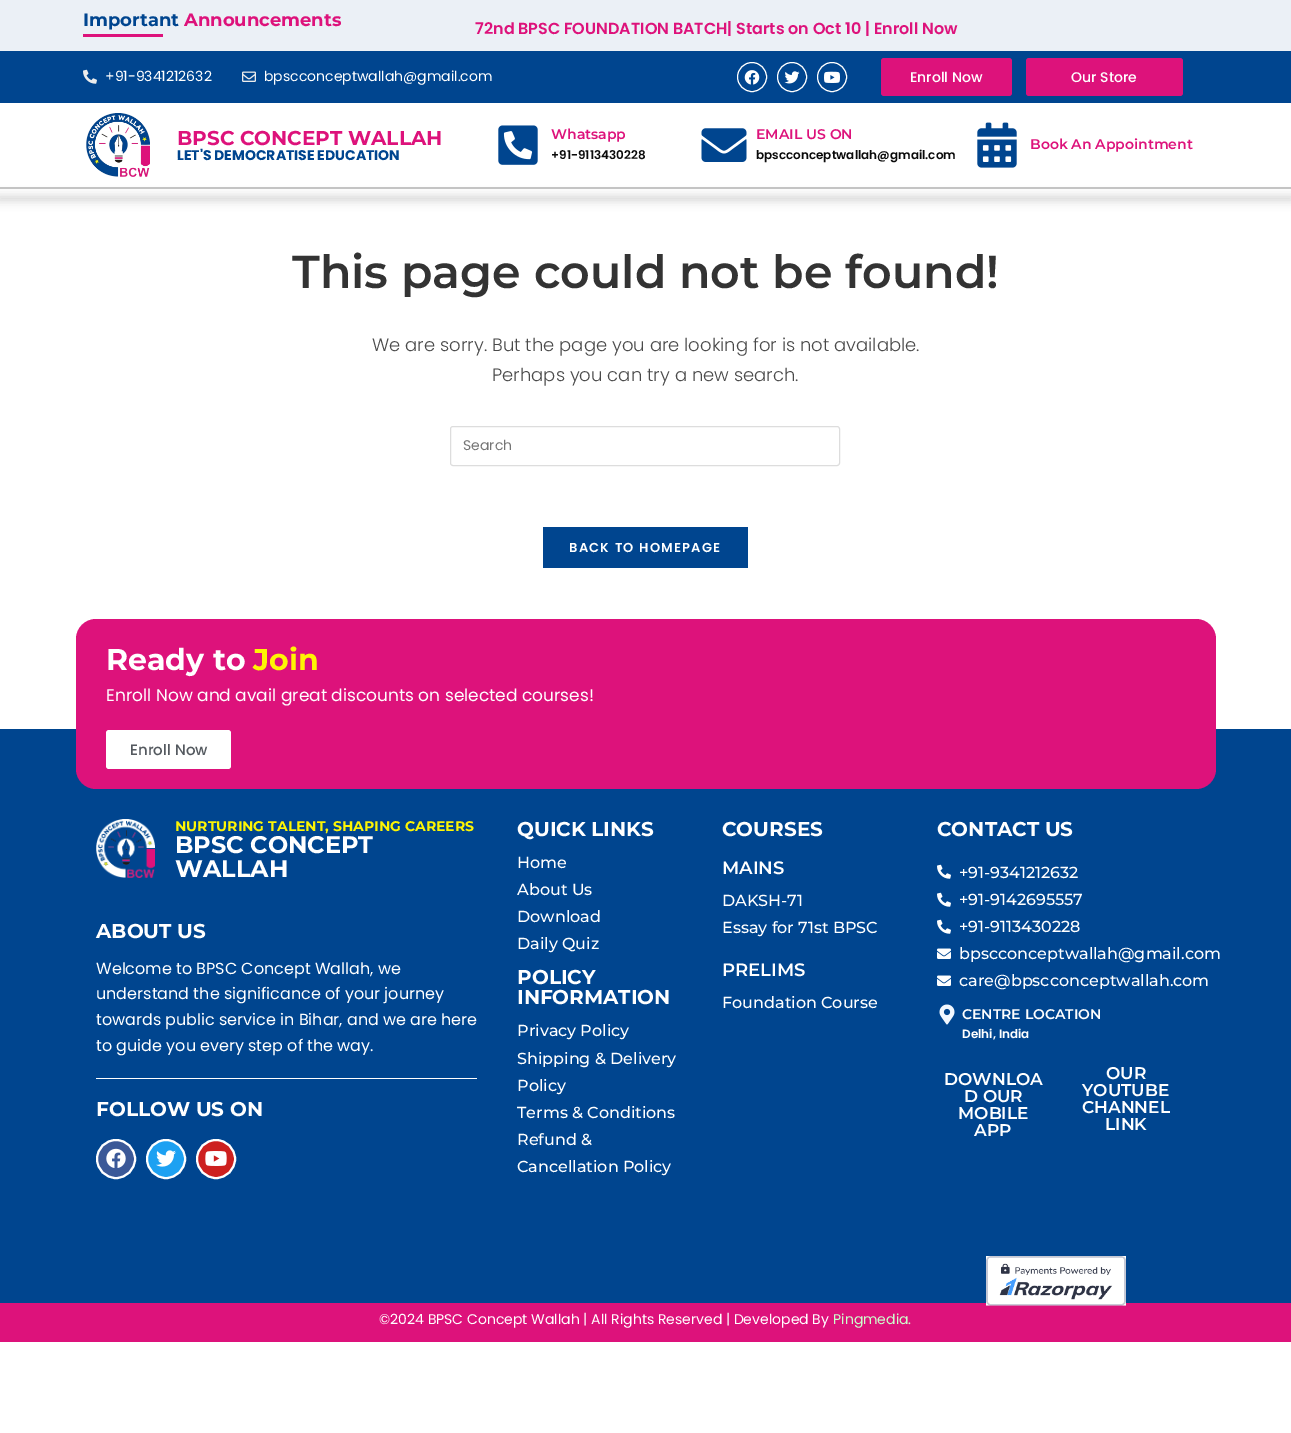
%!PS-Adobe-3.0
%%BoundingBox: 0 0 1291 1433
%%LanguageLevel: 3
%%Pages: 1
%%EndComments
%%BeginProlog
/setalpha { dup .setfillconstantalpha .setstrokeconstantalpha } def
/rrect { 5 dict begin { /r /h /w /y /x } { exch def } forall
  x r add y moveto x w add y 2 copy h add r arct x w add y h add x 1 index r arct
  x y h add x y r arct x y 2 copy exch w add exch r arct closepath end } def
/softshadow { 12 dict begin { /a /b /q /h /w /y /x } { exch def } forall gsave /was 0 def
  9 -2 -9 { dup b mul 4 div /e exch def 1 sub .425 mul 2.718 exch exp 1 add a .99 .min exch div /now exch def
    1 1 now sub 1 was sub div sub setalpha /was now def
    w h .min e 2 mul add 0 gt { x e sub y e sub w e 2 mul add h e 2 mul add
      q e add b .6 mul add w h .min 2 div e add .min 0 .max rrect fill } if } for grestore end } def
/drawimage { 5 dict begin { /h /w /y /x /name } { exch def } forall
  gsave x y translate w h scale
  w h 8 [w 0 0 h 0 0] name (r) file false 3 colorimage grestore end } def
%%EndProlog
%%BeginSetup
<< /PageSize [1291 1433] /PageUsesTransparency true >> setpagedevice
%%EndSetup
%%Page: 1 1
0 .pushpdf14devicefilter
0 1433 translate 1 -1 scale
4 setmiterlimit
1 setgray
0 0 1291 1433 rectfill
0.922 0.941 0.965 setrgbcolor
0 0 1291 51 rectfill
0.867 0.071 0.482 setrgbcolor
83 34 80 3 rectfill
0 0.271 0.561 setrgbcolor
0 51 1291 52 rectfill
(images/1.raw) 83 69 14 15 drawimage
(images/2.raw) 242 71 14 11 drawimage
1 setgray
newpath 752 77 14.5 0 360 arc closepath stroke
(images/3.raw) 744 70 16 15 drawimage
newpath 792 77 14.5 0 360 arc closepath stroke
(images/4.raw) 784 71 16 13 drawimage
newpath 832 77 14.5 0 360 arc closepath stroke
(images/5.raw) 824 71 16 12 drawimage
0.867 0.071 0.482 setrgbcolor
881 58 131 38 3 rrect fill
1026 58 157 38 3 rrect fill
(images/6.raw) 86 113 64 64 drawimage
(images/7.raw) 498 125 40 40 drawimage
(images/8.raw) 701 128 46 34 drawimage
(images/9.raw) 977 122 40 46 drawimage
0 setgray
0 197 1291 3 0 5 0.19 softshadow
0.769 setgray
0 187 1291 2 rectfill
0.867 setgray
450.5 426.5 389 39 2.5 rrect stroke
0 0.271 0.561 setrgbcolor
543 527 205 41 rectfill
0 729 1291 574 rectfill
0.867 0.071 0.482 setrgbcolor
76 619 1140 170 20 rrect fill
1 setgray
106 730 125 39 3 rrect fill
(images/10.raw) 96 819 59 59 drawimage
96 1078 381 1 rectfill
0.231 0.349 0.596 setrgbcolor
newpath 116 1159 19 0 360 arc closepath gsave fill grestore
1 setgray
2 setlinewidth
stroke
(images/11.raw) 106 1148 20 20 drawimage
0.114 0.631 0.949 setrgbcolor
newpath 166 1159 19 0 360 arc closepath gsave fill grestore
1 setgray
stroke
(images/12.raw) 156 1150 20 17 drawimage
0.804 0.125 0.122 setrgbcolor
newpath 216 1159 19 0 360 arc closepath gsave fill grestore
1 setgray
stroke
(images/13.raw) 205 1151 22 15 drawimage
(images/14.raw) 937 864 14 15 drawimage
(images/14.raw) 937 892 14 15 drawimage
(images/14.raw) 937 919 14 15 drawimage
(images/15.raw) 937 948 14 11 drawimage
(images/15.raw) 937 975 14 11 drawimage
(images/16.raw) 939 1004 16 21 drawimage
0.867 0.071 0.482 setrgbcolor
0 1303 1291 39 rectfill
(images/17.raw) 986 1256 140 50 drawimage
/Montserrat-Bold [18 0 0 -18 0 0] selectfont
0 0.271 0.561 setrgbcolor
83 26 moveto (Important) show
0.867 0.071 0.482 setrgbcolor
184 26 moveto (Announcements) show
/Poppins-SemiBold [16 0 0 -16 0 0] selectfont
475 34 moveto (72nd BPSC FOUNDATION BATCH| Starts on Oct 10 | Enroll Now) show
/Poppins-Regular [14 0 0 -14 0 0] selectfont
1 setgray
105 81 moveto (+91-9341212632) show
264 81 moveto (bpscconceptwallah@gmail.com) show
/Poppins-Medium [14 0 0 -14 0 0] selectfont
910 82 moveto (Enroll Now) show
1071 82 moveto (Our Store) show
/Montserrat-Bold [20 0 0 -20 0 0] selectfont
0.867 0.071 0.482 setrgbcolor
177 145 moveto (BPSC CONCEPT WALLAH) show
/Poppins-Bold [14 0 0 -14 0 0] selectfont
0 0.271 0.561 setrgbcolor
177 160 moveto (LET'S DEMOCRATISE EDUCATION) show
/Montserrat-SemiBold [14 0 0 -14 0 0] selectfont
0.867 0.071 0.482 setrgbcolor
551 139 moveto (Whatsapp) show
/Poppins-SemiBold [12 0 0 -12 0 0] selectfont
0.039 setgray
551 159 moveto (+91-9113430228) show
/Montserrat-SemiBold [14 0 0 -14 0 0] selectfont
0.867 0.071 0.482 setrgbcolor
756 139 moveto (EMAIL US ON) show
/Poppins-SemiBold [12 0 0 -12 0 0] selectfont
0.039 setgray
756 159 moveto (bpscconceptwallah@gmail.com) show
/Montserrat-SemiBold [14 0 0 -14 0 0] selectfont
0.867 0.071 0.482 setrgbcolor
1030 149 moveto (Book An Appointment) show
/Montserrat-SemiBold [46 0 0 -46 0 0] selectfont
0.2 setgray
292 288 moveto (This page could not be found!) show
/Poppins-Light [18 0 0 -18 0 0] selectfont
0.29 setgray
372 351 moveto (We are sorry. But the page you are looking for is not available.) show
492 381 moveto (Perhaps you can try a new search.) show
/Poppins-Regular [14 0 0 -14 0 0] selectfont
0.459 setgray
463 450 moveto (Search) show
/Poppins-SemiBold [13 0 0 -13 0 0] selectfont
1 setgray
569 552 moveto 1.25 0 (BACK TO HOMEPAGE) ashow
/Montserrat-Bold [30 0 0 -30 0 0] selectfont
106 670 moveto (Ready to) show
0.996 0.961 0.012 setrgbcolor
253 670 moveto (Join) show
/Poppins-Regular [17 0 0 -17 0 0] selectfont
1 setgray
106 701 moveto (Enroll Now and avail great discounts on selected courses!) show
/Poppins-Medium [15 0 0 -15 0 0] selectfont
0.329 0.349 0.373 setrgbcolor
130 755 moveto (Enroll Now) show
/Montserrat-Bold [14 0 0 -14 0 0] selectfont
0.996 0.961 0.012 setrgbcolor
175 831 moveto (NURTURING TALENT, SHAPING CAREERS) show
/Montserrat-Bold [24 0 0 -24 0 0] selectfont
1 setgray
175 853 moveto (BPSC CONCEPT) show
175 877 moveto (WALLAH) show
/Montserrat-Bold [20 0 0 -20 0 0] selectfont
96 938 moveto (ABOUT US) show
/Poppins-Regular [16 0 0 -16 0 0] selectfont
96 974 moveto (Welcome to BPSC Concept Wallah, we) show
96 999 moveto (understand the significance of your journey) show
96 1025 moveto (towards public service in Bihar, and we are here) show
96 1051 moveto (to guide you every step of the way.) show
/Montserrat-Bold [20 0 0 -20 0 0] selectfont
96 1116 moveto (FOLLOW US ON) show
517 836 moveto (QUICK LINKS) show
/Montserrat-Medium [16 0 0 -16 0 0] selectfont
517 868 moveto (Home) show
517 895 moveto (About Us) show
517 922 moveto (Download) show
517 949 moveto (Daily Quiz) show
/Montserrat-Bold [20 0 0 -20 0 0] selectfont
517 984 moveto (POLICY) show
517 1004 moveto (INFORMATION) show
/Montserrat-Medium [16 0 0 -16 0 0] selectfont
517 1036 moveto (Privacy Policy) show
517 1064 moveto (Shipping & Delivery) show
517 1091 moveto (Policy) show
517 1118 moveto (Terms & Conditions) show
517 1145 moveto (Refund &) show
517 1172 moveto (Cancellation Policy) show
/Montserrat-Bold [20 0 0 -20 0 0] selectfont
722 836 moveto (COURSES) show
/Montserrat-SemiBold [18 0 0 -18 0 0] selectfont
722 874 moveto (MAINS) show
/Montserrat-Medium [16 0 0 -16 0 0] selectfont
722 906 moveto (DAKSH-71) show
722 933 moveto (Essay for 71st BPSC) show
/Montserrat-SemiBold [18 0 0 -18 0 0] selectfont
722 976 moveto (PRELIMS) show
/Montserrat-Medium [16 0 0 -16 0 0] selectfont
722 1008 moveto (Foundation Course) show
/Montserrat-Bold [20 0 0 -20 0 0] selectfont
937 836 moveto (CONTACT US) show
/Montserrat-Medium [16 0 0 -16 0 0] selectfont
959 878 moveto (+91-9341212632) show
959 905 moveto (+91-9142695557) show
959 932 moveto (+91-9113430228) show
959 959 moveto (bpscconceptwallah@gmail.com) show
959 986 moveto (care@bpscconceptwallah.com) show
/Montserrat-SemiBold [14 0 0 -14 0 0] selectfont
962 1019 moveto (CENTRE LOCATION) show
/Poppins-SemiBold [12 0 0 -12 0 0] selectfont
962 1038 moveto (Delhi, India) show
/Montserrat-SemiBold [17 0 0 -17 0 0] selectfont
944 1085 moveto (DOWNLOA) show
964 1102 moveto (D OUR) show
958 1119 moveto (MOBILE) show
974 1136 moveto (APP) show
1106 1079 moveto (OUR) show
1082 1096 moveto (YOUTUBE) show
1082 1113 moveto (CHANNEL) show
1105 1130 moveto (LINK) show
/Poppins-Regular [14 0 0 -14 0 0] selectfont
379 1324 moveto (©2024 BPSC Concept Wallah | All Rights Reserved | Developed By) show
0.8 1 0.8 setrgbcolor
833 1324 moveto (Pingmedia.) show
.poppdf14devicefilter showpage
%%EOF
